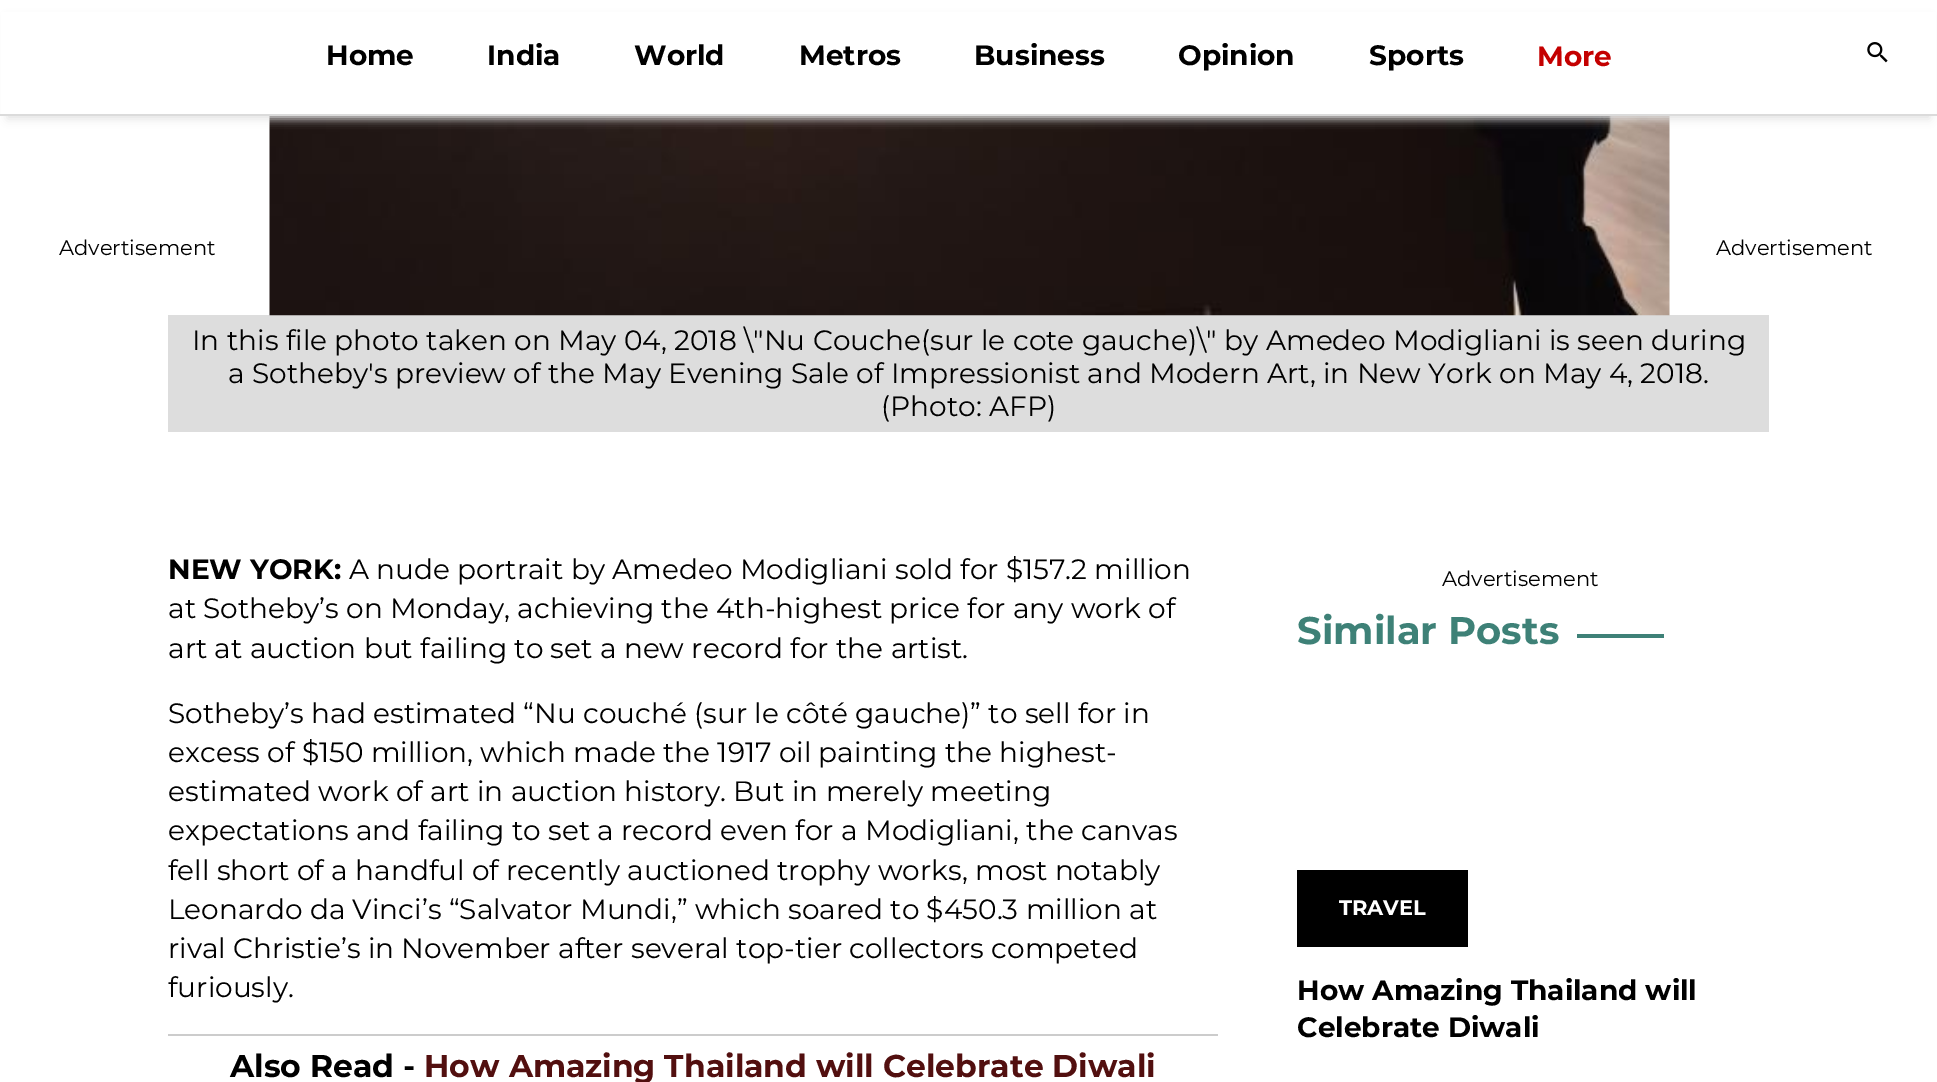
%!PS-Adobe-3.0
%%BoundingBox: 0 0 1937 1082
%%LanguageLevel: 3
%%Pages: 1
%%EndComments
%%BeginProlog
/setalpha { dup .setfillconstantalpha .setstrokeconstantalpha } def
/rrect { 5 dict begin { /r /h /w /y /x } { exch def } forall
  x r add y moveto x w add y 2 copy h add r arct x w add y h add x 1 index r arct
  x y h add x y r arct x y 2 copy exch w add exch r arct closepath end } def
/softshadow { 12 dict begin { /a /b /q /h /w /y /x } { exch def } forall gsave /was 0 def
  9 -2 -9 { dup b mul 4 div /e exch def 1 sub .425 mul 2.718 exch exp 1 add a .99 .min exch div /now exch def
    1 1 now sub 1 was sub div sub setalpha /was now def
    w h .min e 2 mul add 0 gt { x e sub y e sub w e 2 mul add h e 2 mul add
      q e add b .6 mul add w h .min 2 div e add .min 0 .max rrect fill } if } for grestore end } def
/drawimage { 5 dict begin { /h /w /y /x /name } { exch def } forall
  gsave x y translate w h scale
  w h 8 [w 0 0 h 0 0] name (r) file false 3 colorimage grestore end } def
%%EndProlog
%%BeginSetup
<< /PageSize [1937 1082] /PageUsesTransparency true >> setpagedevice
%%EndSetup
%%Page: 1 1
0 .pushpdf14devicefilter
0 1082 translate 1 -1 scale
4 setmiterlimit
1 setgray
0 0 1937 1082 rectfill
0.867 setgray
168 315 1601 117 rectfill
(images/2.raw) 269 116 1401 200 drawimage
0.882 setgray
7 18 1923 101 0 4.5 1 softshadow
1 setgray
1 12 1935 102 rectfill
0.859 setgray
0 114 1937 2 rectfill
(images/1.raw) 1867 42 21 21 drawimage
0.8 setgray
168 1034 1050 2 rectfill
0.243 0.506 0.467 setrgbcolor
1577 634 87 4 rectfill
0 setgray
1297 870 171 77 rectfill
/Montserrat-Regular [21 0 0 -21 0 0] selectfont
59 255 moveto (Advertisement) show
/Montserrat-Bold [28 0 0 -28 0 0] selectfont
326 65 moveto (Home) show
487 65 moveto (India) show
634 65 moveto (World) show
799 65 moveto (Metros) show
974 65 moveto (Business) show
1178 65 moveto (Opinion) show
1369 65 moveto (Sports) show
0.769 0 0 setrgbcolor
1537 66 moveto (More) show
/Montserrat-Regular [28 0 0 -28 0 0] selectfont
0 setgray
192 350 moveto (In this file photo taken on May 04, 2018 \\"Nu Couche\(sur le cote gauche\)\\" by Amedeo Modigliani is seen during) show
228 383 moveto (a Sotheby's preview of the May Evening Sale of Impressionist and Modern Art, in New York on May 4, 2018.) show
881 416 moveto (\(Photo: AFP\)) show
/Montserrat-Bold [28 0 0 -28 0 0] selectfont
168 579 moveto (NEW YORK:) show
/Montserrat-Regular [28 0 0 -28 0 0] selectfont
349 579 moveto (A nude portrait by Amedeo Modigliani sold for $157.2 million) show
168 618 moveto (at Sotheby’s on Monday, achieving the 4th-highest price for any work of) show
168 658 moveto (art at auction but failing to set a new record for the artist.) show
168 723 moveto (Sotheby’s had estimated “Nu couché \(sur le côté gauche\)” to sell for in) show
168 762 moveto (excess of $150 million, which made the 1917 oil painting the highest-) show
168 801 moveto (estimated work of art in auction history. But in merely meeting) show
168 840 moveto (expectations and failing to set a record even for a Modigliani, the canvas) show
168 880 moveto (fell short of a handful of recently auctioned trophy works, most notably) show
168 919 moveto (Leonardo da Vinci’s “Salvator Mundi,” which soared to $450.3 million at) show
168 958 moveto (rival Christie’s in November after several top-tier collectors competed) show
168 997 moveto (furiously.) show
/Montserrat-Bold [31.5 0 0 -31.5 0 0] selectfont
230 1077 moveto (Also Read -) show
0.322 0.059 0.059 setrgbcolor
424 1077 moveto (How Amazing Thailand will Celebrate Diwali) show
/Montserrat-Regular [21 0 0 -21 0 0] selectfont
0 setgray
1442 586 moveto (Advertisement) show
/Montserrat-Bold [38.5 0 0 -38.5 0 0] selectfont
0.243 0.506 0.467 setrgbcolor
1297 644 moveto (Similar Posts) show
/Montserrat-Bold [21 0 0 -21 0 0] selectfont
1 setgray
1339 915 moveto (TRAVEL) show
/Montserrat-Bold [28 0 0 -28 0 0] selectfont
0 setgray
1297 1000 moveto (How Amazing Thailand will) show
1297 1037 moveto (Celebrate Diwali) show
/Montserrat-Regular [21 0 0 -21 0 0] selectfont
1716 255 moveto (Advertisement) show
.poppdf14devicefilter showpage
%%EOF
